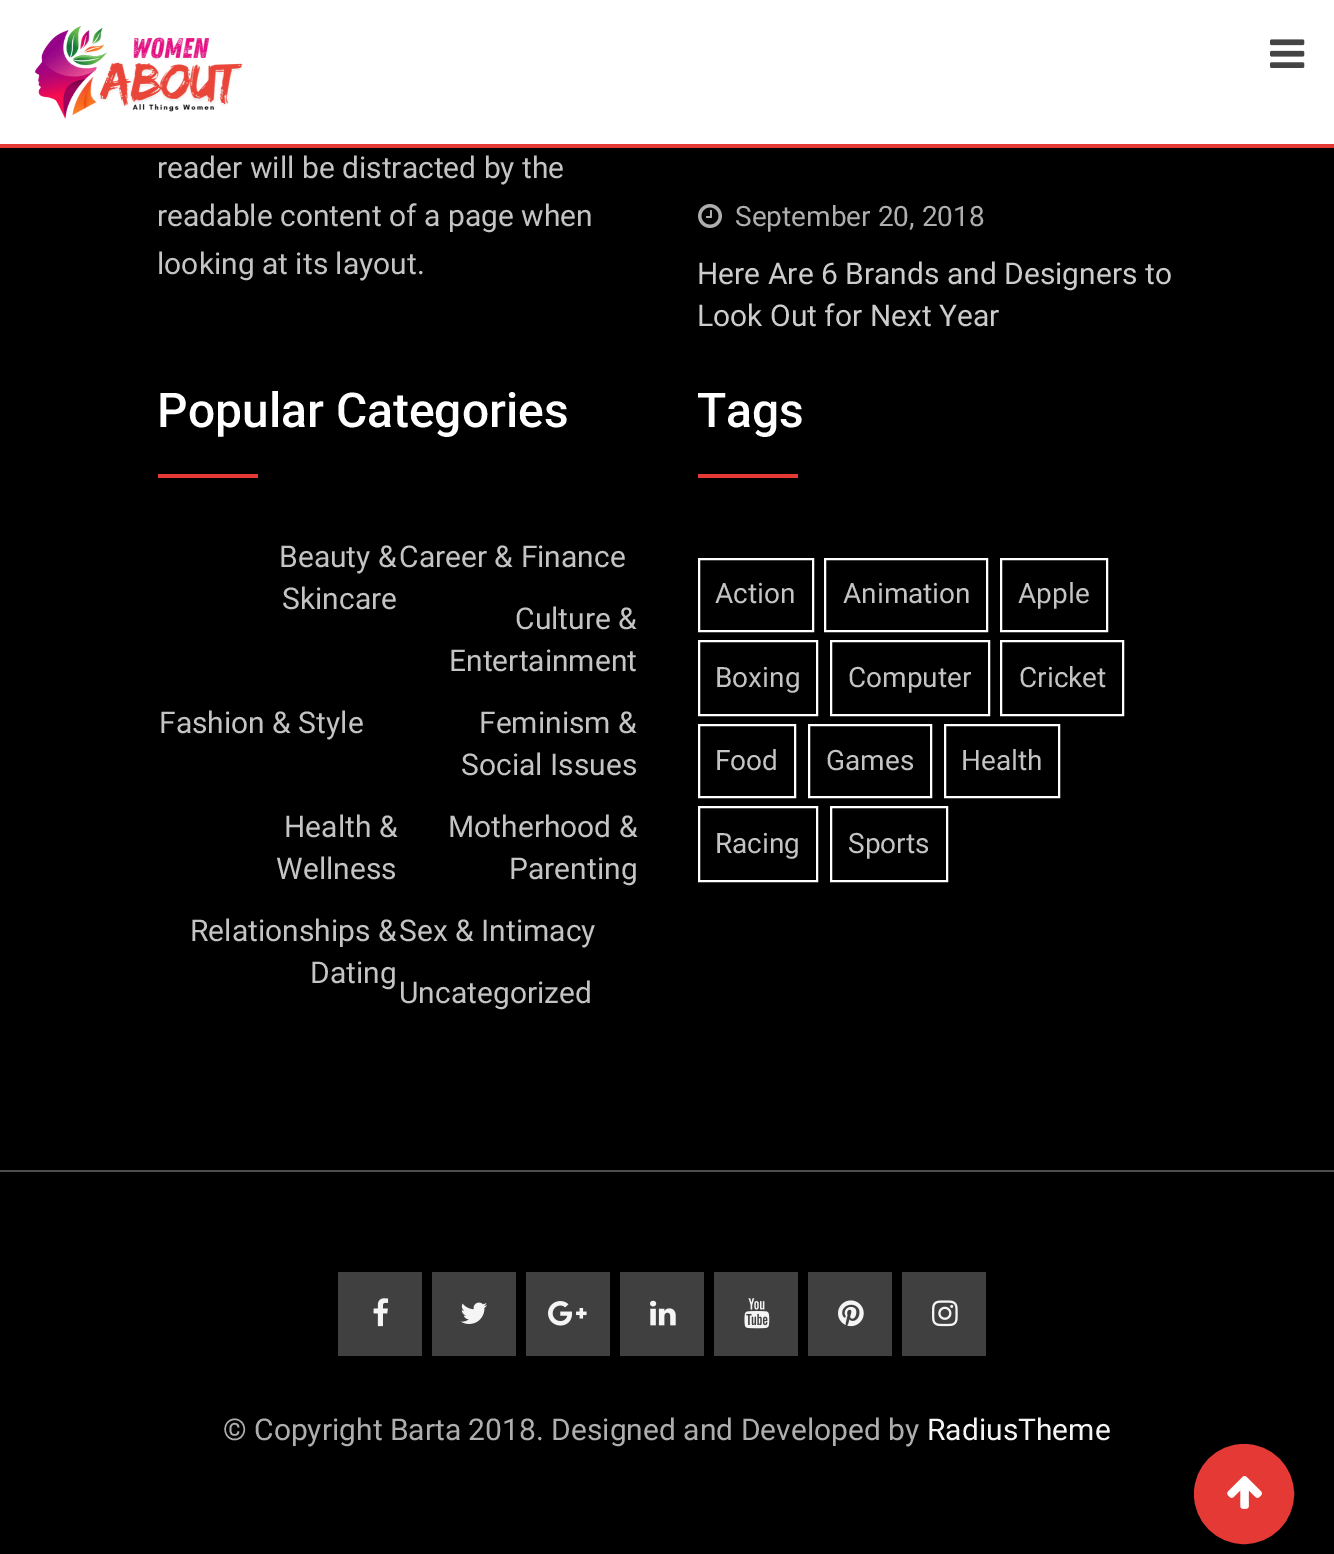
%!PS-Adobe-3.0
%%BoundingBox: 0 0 1334 1554
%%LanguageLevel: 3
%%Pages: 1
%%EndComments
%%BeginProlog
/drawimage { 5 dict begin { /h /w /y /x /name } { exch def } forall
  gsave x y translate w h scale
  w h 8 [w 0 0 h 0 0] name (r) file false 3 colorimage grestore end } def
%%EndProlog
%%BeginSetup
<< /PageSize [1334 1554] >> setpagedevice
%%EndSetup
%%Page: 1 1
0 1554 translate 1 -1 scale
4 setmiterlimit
0 setgray
0 0 1334 1554 rectfill
1 setgray
0 0 1334 144 rectfill
0.898 0.224 0.208 setrgbcolor
0 144 1334 4 rectfill
(images/1.raw) 35 26 208 93 drawimage
(images/2.raw) 1270 39 35 29 drawimage
(images/3.raw) 698 204 24 24 drawimage
158 474 100 4 rectfill
698 474 100 4 rectfill
1 setgray
2 setlinewidth
699 559 114 72 rectstroke
825 559 162 72 rectstroke
1001 559 106 72 rectstroke
699 641 118 74 rectstroke
831 641 158 74 rectstroke
1001 641 122 74 rectstroke
699 725 96 72 rectstroke
809 725 122 72 rectstroke
945 725 114 72 rectstroke
699 807 118 74 rectstroke
831 807 116 74 rectstroke
0.302 setgray
0 1170 1334 2 rectfill
0.251 setgray
338 1272 84 84 rectfill
(images/4.raw) 373 1298 16 29 drawimage
432 1272 84 84 rectfill
(images/5.raw) 461 1302 26 22 drawimage
526 1272 84 84 rectfill
(images/6.raw) 548 1301 39 25 drawimage
620 1272 84 84 rectfill
(images/7.raw) 650 1300 26 26 drawimage
714 1272 84 84 rectfill
(images/8.raw) 744 1298 26 31 drawimage
808 1272 84 84 rectfill
(images/9.raw) 838 1300 26 27 drawimage
902 1272 84 84 rectfill
(images/10.raw) 932 1300 26 27 drawimage
0.898 0.224 0.208 setrgbcolor
newpath 1244 1494 48 0 360 arc closepath gsave fill grestore
4 setlinewidth
stroke
(images/11.raw) 1227 1476 35 33 drawimage
/Roboto-Regular [30 0 0 -30 0 0] selectfont
0.769 setgray
157 178 moveto (reader will be distracted by the) show
157 226 moveto (readable content of a page when) show
157 274 moveto (looking at its layout.) show
/Roboto-Regular [28 0 0 -28 0 0] selectfont
0.682 setgray
735 226 moveto (September 20, 2018) show
/Roboto-Regular [30 0 0 -30 0 0] selectfont
0.8 setgray
697 284 moveto (Here Are 6 Brands and Designers to) show
697 326 moveto (Look Out for Next Year) show
/Roboto-Medium [48 0 0 -48 0 0] selectfont
1 setgray
157 427 moveto (Popular Categories) show
/Roboto-Regular [30 0 0 -30 0 0] selectfont
0.769 setgray
279 567 moveto (Beauty &) show
282 609 moveto (Skincare) show
399 567 moveto (Career & Finance) show
515 629 moveto (Culture &) show
449 671 moveto (Entertainment) show
159 733 moveto (Fashion & Style) show
479 733 moveto (Feminism &) show
461 775 moveto (Social Issues) show
284 837 moveto (Health &) show
276 879 moveto (Wellness) show
448 837 moveto (Motherhood &) show
509 879 moveto (Parenting) show
190 941 moveto (Relationships &) show
310 983 moveto (Dating) show
399 941 moveto (Sex & Intimacy) show
399 1003 moveto (Uncategorized) show
/Roboto-Medium [48 0 0 -48 0 0] selectfont
1 setgray
697 427 moveto (Tags) show
/Roboto-Regular [28 0 0 -28 0 0] selectfont
0.769 setgray
715 603 moveto (Action) show
843 603 moveto (Animation) show
1018 603 moveto (Apple) show
715 687 moveto (Boxing) show
848 687 moveto (Computer) show
1019 687 moveto (Cricket) show
715 770 moveto (Food) show
826 770 moveto (Games) show
961 770 moveto (Health) show
715 853 moveto (Racing) show
848 853 moveto (Sports) show
/Roboto-Regular [30 0 0 -30 0 0] selectfont
0.682 setgray
223 1440 moveto (© Copyright Barta 2018. Designed and Developed by) show
0.961 setgray
927 1440 moveto (RadiusTheme) show
showpage
%%EOF
